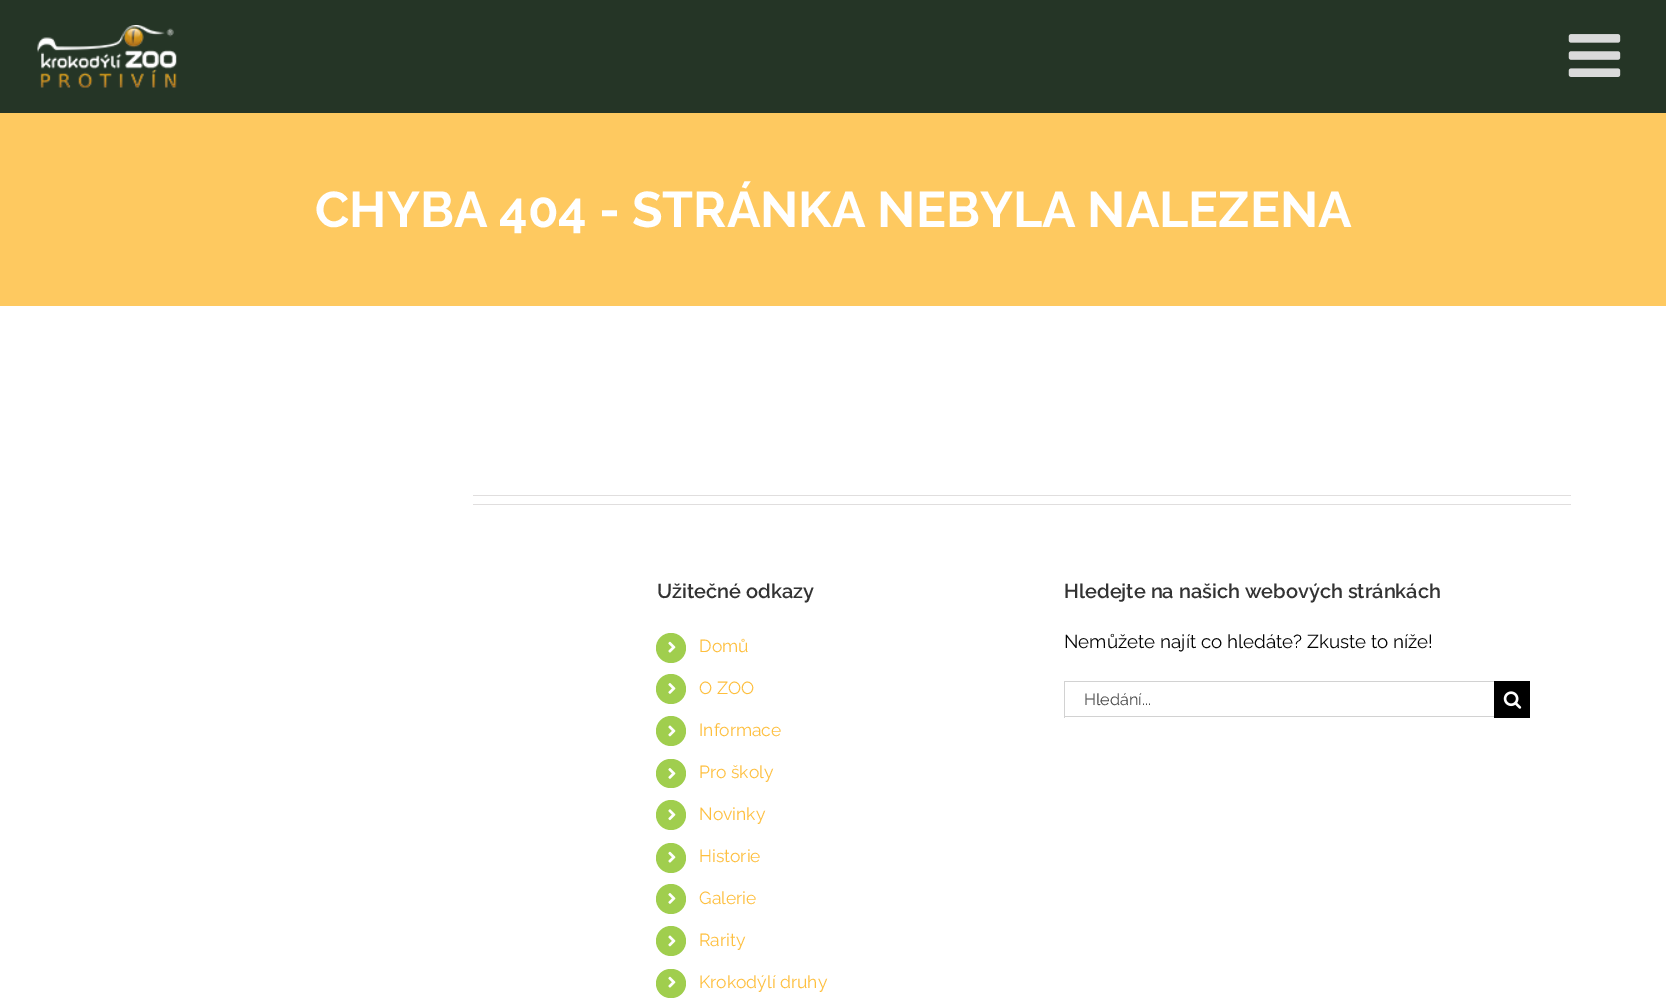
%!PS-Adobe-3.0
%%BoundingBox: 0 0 1666 1001
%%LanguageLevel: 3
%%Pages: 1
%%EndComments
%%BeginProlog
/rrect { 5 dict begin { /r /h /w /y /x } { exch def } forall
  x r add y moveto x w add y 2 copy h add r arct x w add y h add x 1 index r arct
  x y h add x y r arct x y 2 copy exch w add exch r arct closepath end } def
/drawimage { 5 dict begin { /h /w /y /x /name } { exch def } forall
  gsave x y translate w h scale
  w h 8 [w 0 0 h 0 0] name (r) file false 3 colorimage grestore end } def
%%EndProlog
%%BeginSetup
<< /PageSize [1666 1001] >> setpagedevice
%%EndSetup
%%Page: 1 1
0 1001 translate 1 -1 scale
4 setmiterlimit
1 setgray
0 0 1666 1001 rectfill
0.145 0.208 0.149 setrgbcolor
0 0 1666 113 rectfill
(images/1.raw) 37 25 140 63 drawimage
(images/2.raw) 1568 34 53 43 drawimage
0.996 0.788 0.376 setrgbcolor
0 113 1666 193 rectfill
0.878 0.871 0.871 setrgbcolor
473 495 1098 1 rectfill
473 504 1098 1 rectfill
0.627 0.808 0.306 setrgbcolor
newpath 671 648 15 0 360 arc closepath fill
(images/3.raw) 668 641 8 12 drawimage
newpath 671 689 15 0 360 arc closepath fill
(images/4.raw) 668 683 8 11 drawimage
newpath 671 731 15 0 360 arc closepath fill
(images/5.raw) 668 725 8 12 drawimage
656 759 30 29 14.5 rrect fill
(images/4.raw) 668 768 8 11 drawimage
newpath 671 815 15 0 360 arc closepath fill
(images/6.raw) 668 809 8 12 drawimage
newpath 671 858 15 0 360 arc closepath fill
(images/3.raw) 668 851 8 12 drawimage
newpath 671 899 15 0 360 arc closepath fill
(images/4.raw) 668 893 8 11 drawimage
newpath 671 941 15 0 360 arc closepath fill
(images/5.raw) 668 935 8 12 drawimage
656 969 30 29 14.5 rrect fill
(images/3.raw) 668 976 8 12 drawimage
0.824 setgray
1064 681 430 1 rectfill
1064 716 430 1 rectfill
1064 681 1 37 rectfill
0 setgray
1494 681 36 37 rectfill
(images/7.raw) 1503 691 19 18 drawimage
/Raleway-Bold [50 0 0 -50 0 0] selectfont
1 setgray
315 227 moveto (CHYBA 404 - STRÁNKA NEBYLA NALEZENA) show
/Raleway-SemiBold [20 0 0 -20 0 0] selectfont
0.2 setgray
657 598 moveto (Užitečné odkazy) show
/Raleway-Regular [17.5 0 0 -17.5 0 0] selectfont
0.996 0.749 0.243 setrgbcolor
699 652 moveto (Domů) show
699 694 moveto (O ZOO) show
699 736 moveto (Informace) show
699 778 moveto (Pro školy) show
699 820 moveto (Novinky) show
699 862 moveto (Historie) show
699 904 moveto (Galerie) show
699 946 moveto (Rarity) show
699 988 moveto (Krokodýlí druhy) show
/Raleway-SemiBold [20 0 0 -20 0 0] selectfont
0.2 setgray
1064 598 moveto (Hledejte na našich webových stránkách) show
/Raleway-Regular [18.75 0 0 -18.75 0 0] selectfont
0.02 setgray
1064 648 moveto (Nemůžete najít co hledáte? Zkuste to níže!) show
/Raleway-Regular [16.25 0 0 -16.25 0 0] selectfont
0.286 setgray
1084 705 moveto (Hledání...) show
showpage
%%EOF
